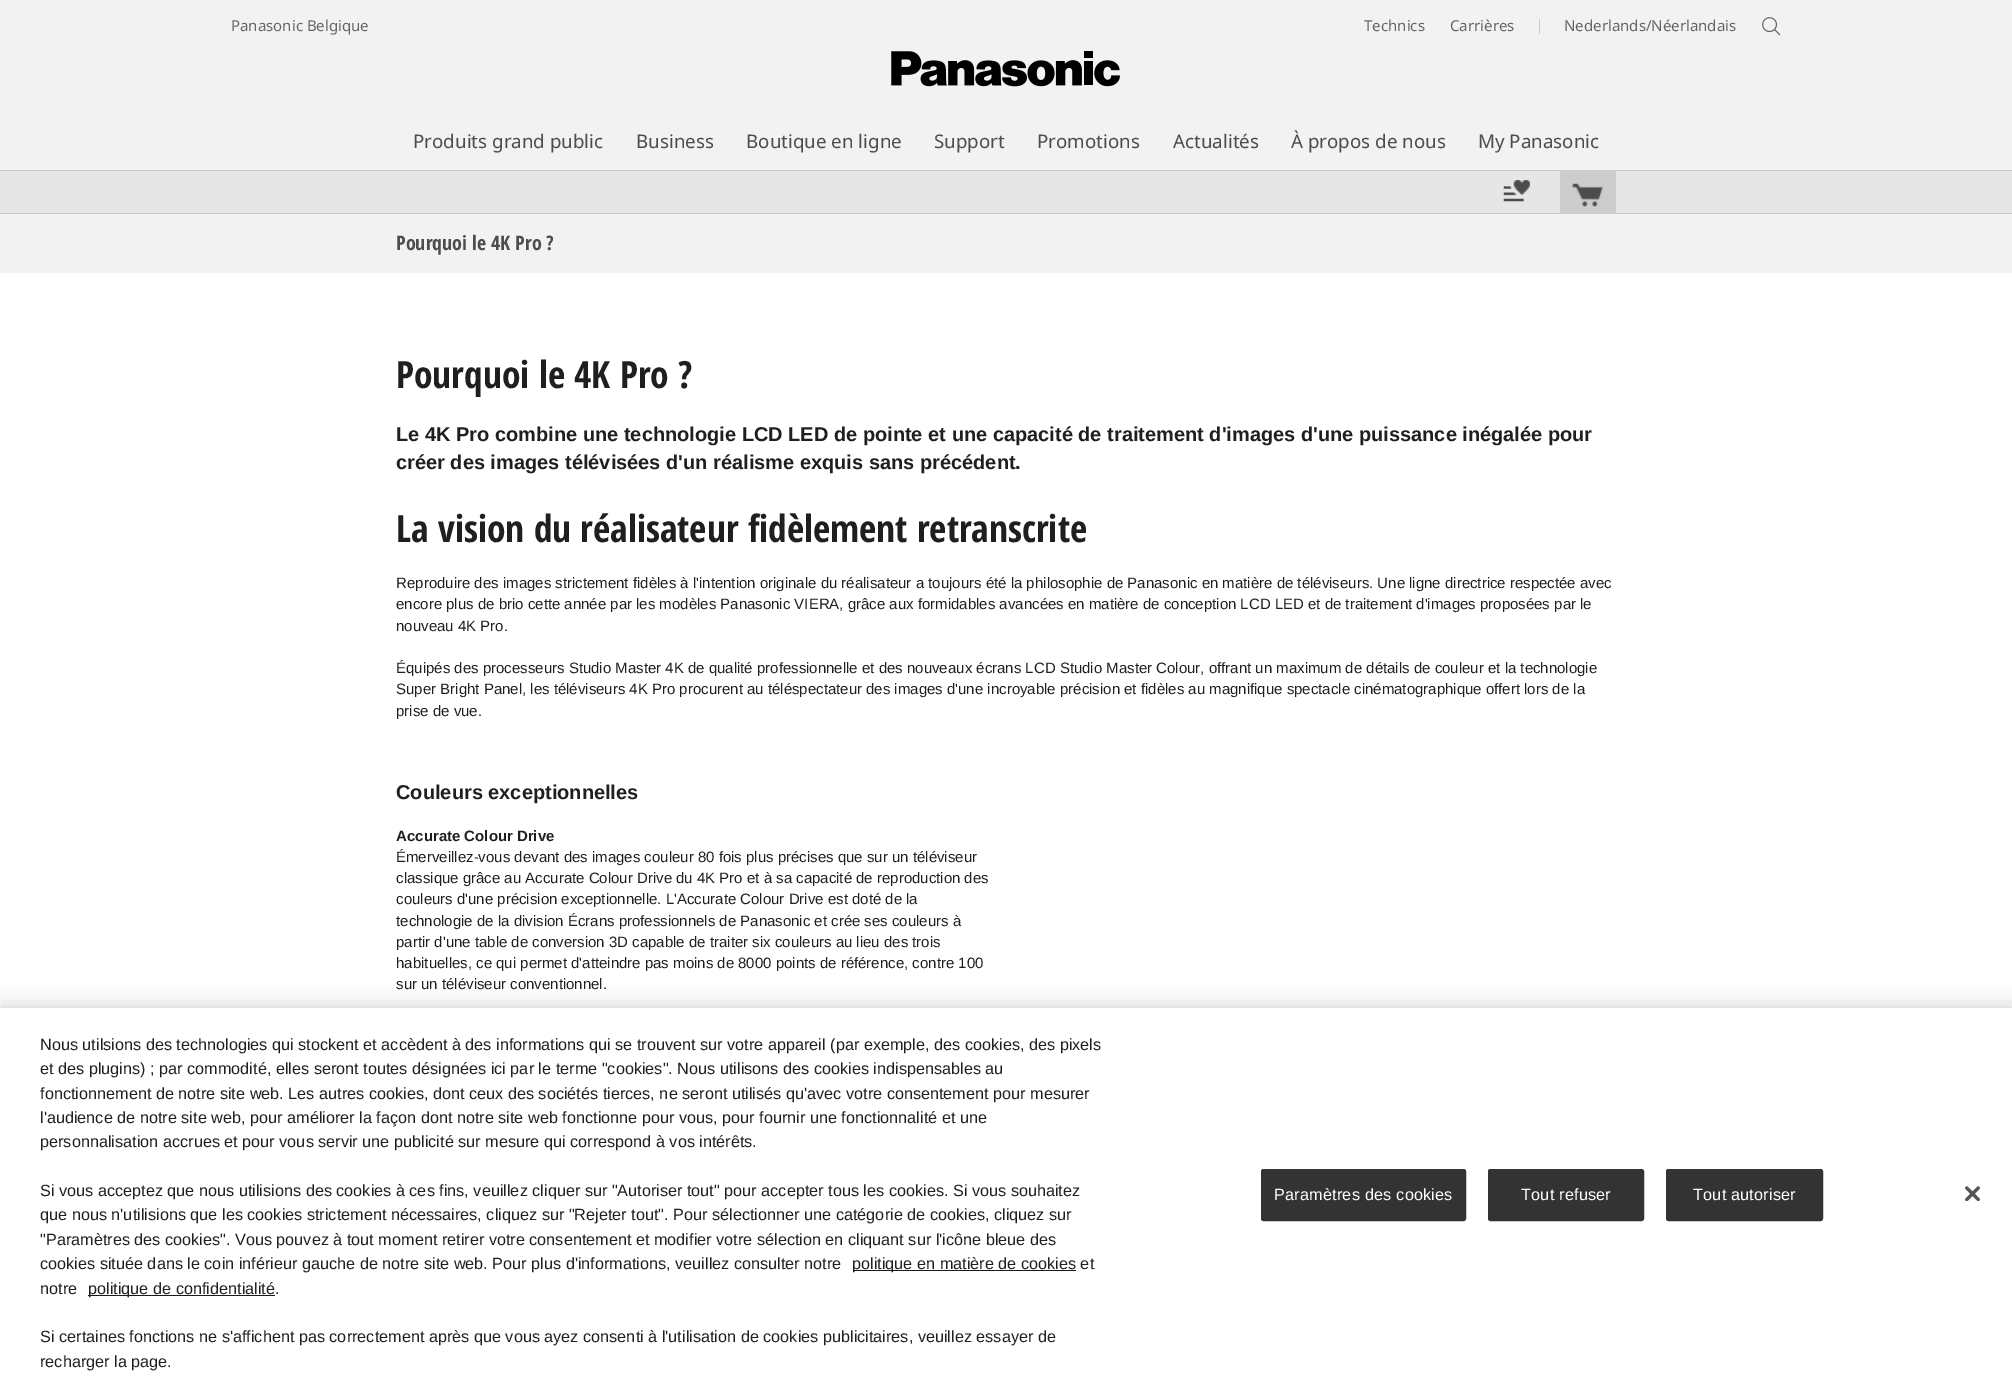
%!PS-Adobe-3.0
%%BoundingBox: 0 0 2012 1386
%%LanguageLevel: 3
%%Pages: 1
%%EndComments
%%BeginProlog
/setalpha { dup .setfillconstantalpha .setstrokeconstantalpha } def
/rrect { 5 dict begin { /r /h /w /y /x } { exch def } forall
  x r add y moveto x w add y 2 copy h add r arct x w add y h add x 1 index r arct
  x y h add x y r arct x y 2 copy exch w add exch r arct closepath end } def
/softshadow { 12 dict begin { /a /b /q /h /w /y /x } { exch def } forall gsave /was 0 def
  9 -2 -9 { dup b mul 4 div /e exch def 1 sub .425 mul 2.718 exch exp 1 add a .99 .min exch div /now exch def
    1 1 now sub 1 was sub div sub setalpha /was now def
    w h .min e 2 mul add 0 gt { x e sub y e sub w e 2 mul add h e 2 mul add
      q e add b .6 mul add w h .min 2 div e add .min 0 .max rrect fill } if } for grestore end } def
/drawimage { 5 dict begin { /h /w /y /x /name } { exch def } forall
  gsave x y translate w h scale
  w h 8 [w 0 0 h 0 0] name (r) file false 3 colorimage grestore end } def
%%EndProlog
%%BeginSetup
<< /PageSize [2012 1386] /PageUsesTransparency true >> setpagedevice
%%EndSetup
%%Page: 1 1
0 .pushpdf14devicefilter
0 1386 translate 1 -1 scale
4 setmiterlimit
0.949 setgray
0 0 2012 1386 rectfill
0.8 setgray
1539 19 1 15 rectfill
(images/1.raw) 1762 17 19 19 drawimage
(images/2.raw) 891 51 229 36 drawimage
0.902 setgray
0 171 2012 42 rectfill
0.8 setgray
0 170 2012 1 rectfill
(images/4.raw) 1503 186 21 16 drawimage
(images/3.raw) 1513 180 17 15 drawimage
1560 171 56 42 rectfill
(images/5.raw) 1572 183 31 24 drawimage
0 213 2012 1 rectfill
1 setgray
0 273 2012 735 rectfill
0 setgray
0 1008 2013 378 0 11 0.2 softshadow
1 setgray
0 1008 2012 378 rectfill
0.102 setgray
853 1270 223 1 rectfill
88 1295 187 1 rectfill
0.2 setgray
1261.5 1169.5 204 51 2 rrect gsave fill grestore
stroke
1488.5 1169.5 155 51 2 rrect gsave fill grestore
stroke
1666.5 1169.5 156 51 2 rrect gsave fill grestore
stroke
(images/6.raw) 1965 1186 15 15 drawimage
/NotoSans-Regular [15 0 0 -15 0 0] selectfont
0.4 setgray
231 31 moveto (Panasonic Belgique) show
1364 31 moveto (Technics) show
1450 31 moveto (Carrières) show
1564 31 moveto (Nederlands/Néerlandais) show
/NotoSans-Regular [18.75 0 0 -18.75 0 0] selectfont
0.302 setgray
413 148 moveto (Produits grand public) show
636 148 moveto (Business) show
746 148 moveto (Boutique en ligne) show
934 148 moveto (Support) show
1037 148 moveto (Promotions) show
1173 148 moveto (Actualités) show
1291 148 moveto (À propos de nous) show
1478 148 moveto (My Panasonic) show
/OpenSansCondensed-Bold [20 0 0 -20 0 0] selectfont
396 250 moveto (Pourquoi le 4K Pro ?) show
/OpenSansCondensed-Bold [37.5 0 0 -37.5 0 0] selectfont
0.122 setgray
396 388 moveto (Pourquoi le 4K Pro ?) show
/LiberationSans-Bold [20 0 0 -20 0 0] selectfont
396 441 moveto (Le 4K Pro combine une technologie LCD LED de pointe et une capacité de traitement d'images d'une puissance inégalée pour) show
396 469 moveto (créer des images télévisées d'un réalisme exquis sans précédent.) show
/OpenSansCondensed-Bold [37.5 0 0 -37.5 0 0] selectfont
396 542 moveto (La vision du réalisateur fidèlement retranscrite) show
/LiberationSans-Regular [15 0 0 -15 0 0] selectfont
396 588 moveto (Reproduire des images strictement fidèles à l'intention originale du réalisateur a toujours été la philosophie de Panasonic en matière de téléviseurs. Une ligne directrice respectée avec) show
396 609 moveto (encore plus de brio cette année par les modèles Panasonic VIERA, grâce aux formidables avancées en matière de conception LCD LED et de traitement d'images proposées par le) show
396 631 moveto (nouveau 4K Pro.) show
396 673 moveto (Équipés des processeurs Studio Master 4K de qualité professionnelle et des nouveaux écrans LCD Studio Master Colour, offrant un maximum de détails de couleur et la technologie) show
396 694 moveto (Super Bright Panel, les téléviseurs 4K Pro procurent au téléspectateur des images d'une incroyable précision et fidèles au magnifique spectacle cinématographique offert lors de la) show
396 716 moveto (prise de vue.) show
/LiberationSans-Bold [20 0 0 -20 0 0] selectfont
396 799 moveto (Couleurs exceptionnelles) show
/LiberationSans-Bold [15 0 0 -15 0 0] selectfont
396 841 moveto (Accurate Colour Drive) show
/LiberationSans-Regular [15 0 0 -15 0 0] selectfont
396 862 moveto (Émerveillez-vous devant des images couleur 80 fois plus précises que sur un téléviseur) show
396 883 moveto (classique grâce au Accurate Colour Drive du 4K Pro et à sa capacité de reproduction des) show
396 904 moveto (couleurs d'une précision exceptionnelle. L'Accurate Colour Drive est doté de la) show
396 926 moveto (technologie de la division Écrans professionnels de Panasonic et crée ses couleurs à) show
396 947 moveto (partir d'une table de conversion 3D capable de traiter six couleurs au lieu des trois) show
396 968 moveto (habituelles, ce qui permet d'atteindre pas moins de 8000 points de référence, contre 100) show
396 989 moveto (sur un téléviseur conventionnel.) show
/LiberationSans-Regular [16.25 0 0 -16.25 0 0] selectfont
40 1050 moveto (Nous utilsions des technologies qui stockent et accèdent à des informations qui se trouvent sur votre appareil \(par exemple, des cookies, des pixels) show
40 1074 moveto (et des plugins\) ; par commodité, elles seront toutes désignées ici par le terme "cookies". Nous utilisons des cookies indispensables au) show
40 1099 moveto (fonctionnement de notre site web. Les autres cookies, dont ceux des sociétés tierces, ne seront utilisés qu'avec votre consentement pour mesurer) show
40 1123 moveto (l'audience de notre site web, pour améliorer la façon dont notre site web fonctionne pour vous, pour fournir une fonctionnalité et une) show
40 1147 moveto (personnalisation accrues et pour vous servir une publicité sur mesure qui correspond à vos intérêts.) show
40 1196 moveto (Si vous acceptez que nous utilisions des cookies à ces fins, veuillez cliquer sur "Autoriser tout" pour accepter tous les cookies. Si vous souhaitez) show
40 1220 moveto (que nous n'utilisions que les cookies strictement nécessaires, cliquez sur "Rejeter tout". Pour sélectionner une catégorie de cookies, cliquez sur) show
40 1245 moveto ("Paramètres des cookies". Vous pouvez à tout moment retirer votre consentement et modifier votre sélection en cliquant sur l'icône bleue des) show
40 1269 moveto (cookies située dans le coin inférieur gauche de notre site web. Pour plus d'informations, veuillez consulter notre) show
852 1269 moveto (politique en matière de cookies et) show
40 1294 moveto (notre) show
88 1294 moveto (politique de confidentialité.) show
40 1342 moveto (Si certaines fonctions ne s'affichent pas correctement après que vous ayez consenti à l'utilisation de cookies publicitaires, veuillez essayer de) show
40 1367 moveto (recharger la page.) show
1 setgray
1274 1200 moveto 0.2 0 (Paramètres des cookies) ashow
1521 1200 moveto 0.2 0 (Tout refuser) ashow
1693 1200 moveto 0.2 0 (Tout autoriser) ashow
.poppdf14devicefilter showpage
%%EOF
